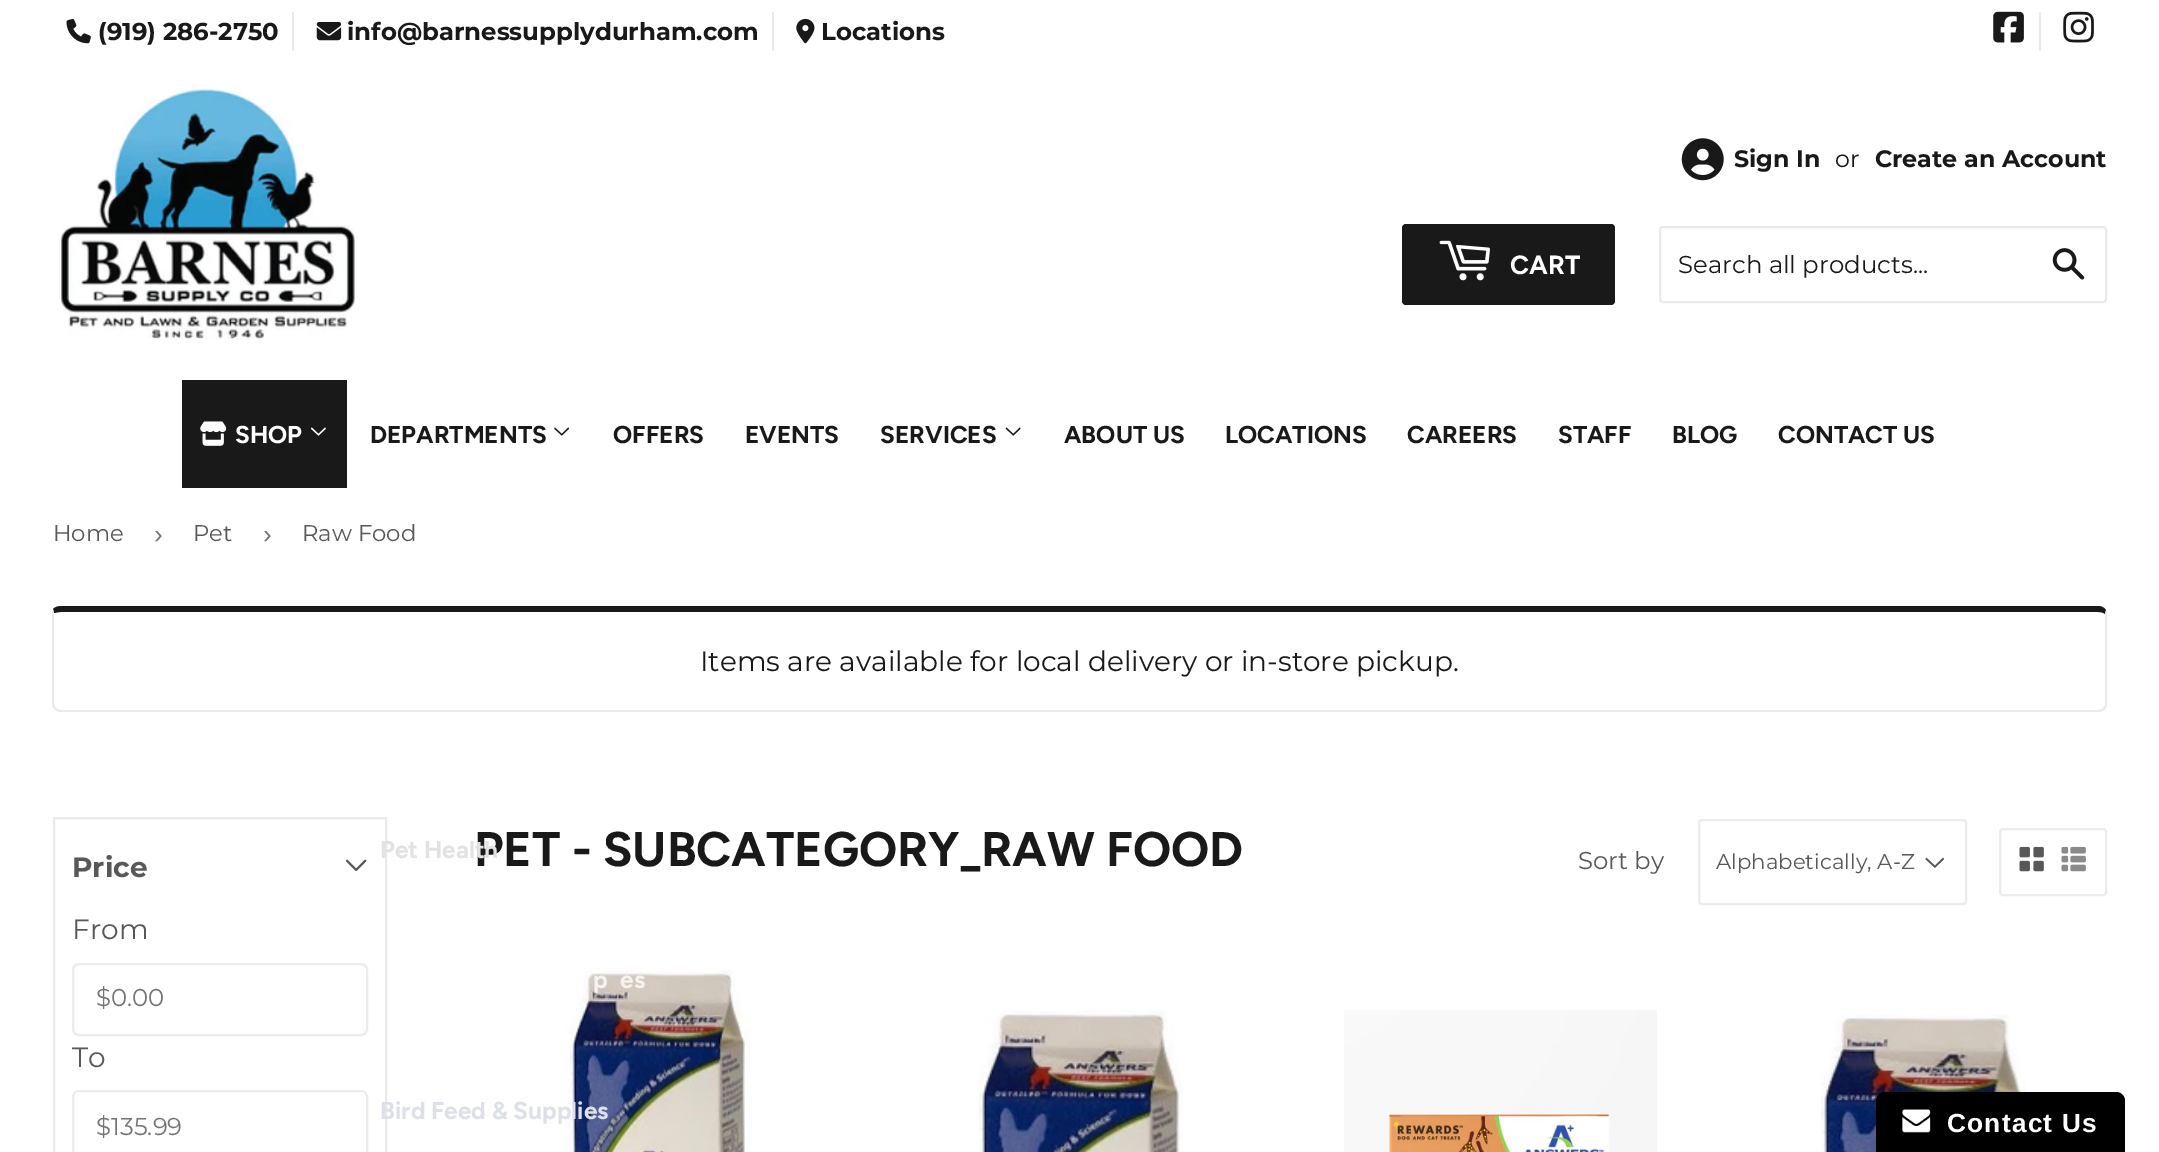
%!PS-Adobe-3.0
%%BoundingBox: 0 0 2159 1152
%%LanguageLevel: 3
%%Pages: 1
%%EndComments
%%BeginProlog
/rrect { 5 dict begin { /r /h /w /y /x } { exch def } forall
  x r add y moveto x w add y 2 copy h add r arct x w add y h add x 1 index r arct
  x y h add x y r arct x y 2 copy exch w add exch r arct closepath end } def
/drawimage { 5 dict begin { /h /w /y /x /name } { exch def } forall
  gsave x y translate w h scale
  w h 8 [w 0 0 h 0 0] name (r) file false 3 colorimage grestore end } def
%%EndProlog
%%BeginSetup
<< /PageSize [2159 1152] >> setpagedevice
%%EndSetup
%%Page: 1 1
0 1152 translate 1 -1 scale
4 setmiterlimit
1 setgray
0 0 2159 1152 rectfill
0.918 setgray
292 12 2 39 rectfill
(images/1.raw) 66 18 25 26 drawimage
772 12 2 39 rectfill
(images/2.raw) 316 22 26 19 drawimage
(images/3.raw) 796 18 19 26 drawimage
2039 12 2 39 rectfill
(images/4.raw) 1993 11 31 32 drawimage
(images/5.raw) 2063 11 31 32 drawimage
(images/6.raw) 59 85 296 255 drawimage
(images/7.raw) 1681 138 43 43 drawimage
0.098 setgray
1402 224 213 81 4 rrect fill
(images/8.raw) 1439 240 51 41 drawimage
0.918 setgray
2 setlinewidth
1660 227 446 75 3 rrect stroke
(images/9.raw) 2052 248 33 32 drawimage
0.098 setgray
182 380 165 108 rectfill
(images/10.raw) 200 421 27 25 drawimage
(images/11.raw) 311 427 15 9 drawimage
(images/12.raw) 554 427 16 9 drawimage
(images/13.raw) 1005 427 16 9 drawimage
newpath 61 606 moveto 58 606 55 607 53 609 curveto 54 613 lineto 55 613 58 612 61 612 curveto 2098 612 lineto 2102 612 2104 613 2105 614 curveto 2106 610 lineto 2104 607 2101 606 2098 606 curveto closepath fill
0.918 setgray
newpath 2107 704 moveto 2107 614 lineto 2107 612 2107 611 2106 610 curveto 2105 614 lineto 2105 705 lineto 2105 706 2104 707 2103 708 curveto 2104 710 lineto 2106 708 2107 706 2107 704 curveto closepath fill
newpath 2104 710 moveto 2103 711 2100 712 2098 712 curveto 61 712 lineto 59 712 57 711 55 710 curveto 56 708 lineto 58 709 59 710 61 710 curveto 2098 710 lineto 2100 710 2102 709 2103 708 curveto closepath fill
newpath 52 611 moveto 53 609 lineto 54 613 lineto 54 614 lineto 54 704 lineto 54 706 55 707 56 708 curveto 55 710 lineto 52 706 lineto closepath fill
54 818 332 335 rectstroke
(images/14.raw) 345 859 22 12 drawimage
0.925 setgray
73 964 294 71 6 rrect stroke
73 1091 294 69 6 rrect stroke
(images/15.raw) 1925 857 19 11 drawimage
1699 820 267 84 3 rrect stroke
2000 829 106 66 3 rrect stroke
(images/16.raw) 2019 846 25 26 drawimage
(images/17.raw) 2061 846 25 26 drawimage
(images/18.raw) 564 969 188 183 drawimage
(images/19.raw) 979 1010 204 142 drawimage
(images/20.raw) 1344 1010 313 142 drawimage
(images/21.raw) 1821 1014 205 138 drawimage
0 setgray
newpath 1885 1092 moveto 2116 1092 lineto 2121 1092 2125 1096 2125 1101 curveto 2125 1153 lineto 1876 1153 lineto 1876 1101 lineto 1876 1096 1880 1092 1885 1092 curveto closepath fill
(images/22.raw) 1902 1109 29 24 drawimage
/Montserrat-Bold [24.4 0 0 -24.4 0 0] selectfont
0.098 setgray
98 40 moveto (\(919\) 286-2750) show
347 40 moveto (info@barnessupplydurham.com) show
821 40 moveto (Locations) show
/Montserrat-Bold [23.75 0 0 -23.75 0 0] selectfont
1734 167 moveto (Sign In) show
/Montserrat-Regular [23.75 0 0 -23.75 0 0] selectfont
1835 167 moveto (or) show
/Montserrat-Bold [23.75 0 0 -23.75 0 0] selectfont
1875 167 moveto (Create an Account) show
/Figtree-Bold [26.25 0 0 -26.25 0 0] selectfont
1 setgray
1510 274 moveto (CART) show
/Montserrat-Regular [24.4 0 0 -24.4 0 0] selectfont
0.098 setgray
1678 273 moveto (Search all products...) show
/Figtree-Bold [24.4 0 0 -24.4 0 0] selectfont
1 setgray
235 443 moveto (SHOP) show
0.098 setgray
370 443 moveto (DEPARTMENTS) show
0.961 0.953 0.941 setrgbcolor
593 988 moveto (p) show
620 988 moveto (es) show
0.871 0.878 0.914 setrgbcolor
380 1119 moveto (Bird Feed & Supplies) show
0.098 setgray
613 443 moveto (OFFERS) show
745 443 moveto (EVENTS) show
880 443 moveto (SERVICES) show
1064 443 moveto (ABOUT US) show
1225 443 moveto (LOCATIONS) show
1407 443 moveto (CAREERS) show
1558 443 moveto (STAFF) show
1672 443 moveto (BLOG) show
1778 443 moveto (CONTACT US) show
/Montserrat-Regular [22.75 0 0 -22.75 0 0] selectfont
0.345 setgray
53 541 moveto (Home) show
/LiberationSans-Regular [26.25 0 0 -26.25 0 0] selectfont
0.459 setgray
154 543 moveto (›) show
/Montserrat-Regular [22.75 0 0 -22.75 0 0] selectfont
0.345 setgray
193 541 moveto (Pet) show
/LiberationSans-Regular [26.25 0 0 -26.25 0 0] selectfont
0.459 setgray
263 543 moveto (›) show
/Montserrat-Regular [22.75 0 0 -22.75 0 0] selectfont
0.345 setgray
302 541 moveto (Raw Food) show
/Montserrat-Regular [28 0 0 -28 0 0] selectfont
0.098 setgray
700 671 moveto (Items are available for local delivery or in-store pickup.) show
/Montserrat-Bold [28 0 0 -28 0 0] selectfont
0.345 setgray
72 877 moveto (Price) show
/Montserrat-Regular [28 0 0 -28 0 0] selectfont
72 939 moveto (From) show
/Montserrat-Regular [24.4 0 0 -24.4 0 0] selectfont
0.459 setgray
96 1006 moveto ($0.00) show
/Montserrat-Regular [28 0 0 -28 0 0] selectfont
0.345 setgray
72 1067 moveto (To) show
/Montserrat-Regular [24.4 0 0 -24.4 0 0] selectfont
0.459 setgray
96 1135 moveto ($135.99) show
/Figtree-Bold [48.5 0 0 -48.5 0 0] selectfont
0.098 setgray
474 866 moveto (PET - SUBCATEGORY_RAW FOOD) show
/Figtree-Bold [24.4 0 0 -24.4 0 0] selectfont
0.886 setgray
380 858 moveto (Pet Health) show
/Montserrat-Regular [24.4 0 0 -24.4 0 0] selectfont
0.345 setgray
1578 869 moveto (Sort by) show
/Montserrat-Regular [21.25 0 0 -21.25 0 0] selectfont
1716 869 moveto (Alphabetically, A-Z) show
/LiberationSans-Bold [26.25 0 0 -26.25 0 0] selectfont
1 setgray
1947 1132 moveto 1.25 0 (Contact Us) ashow
showpage
%%EOF
